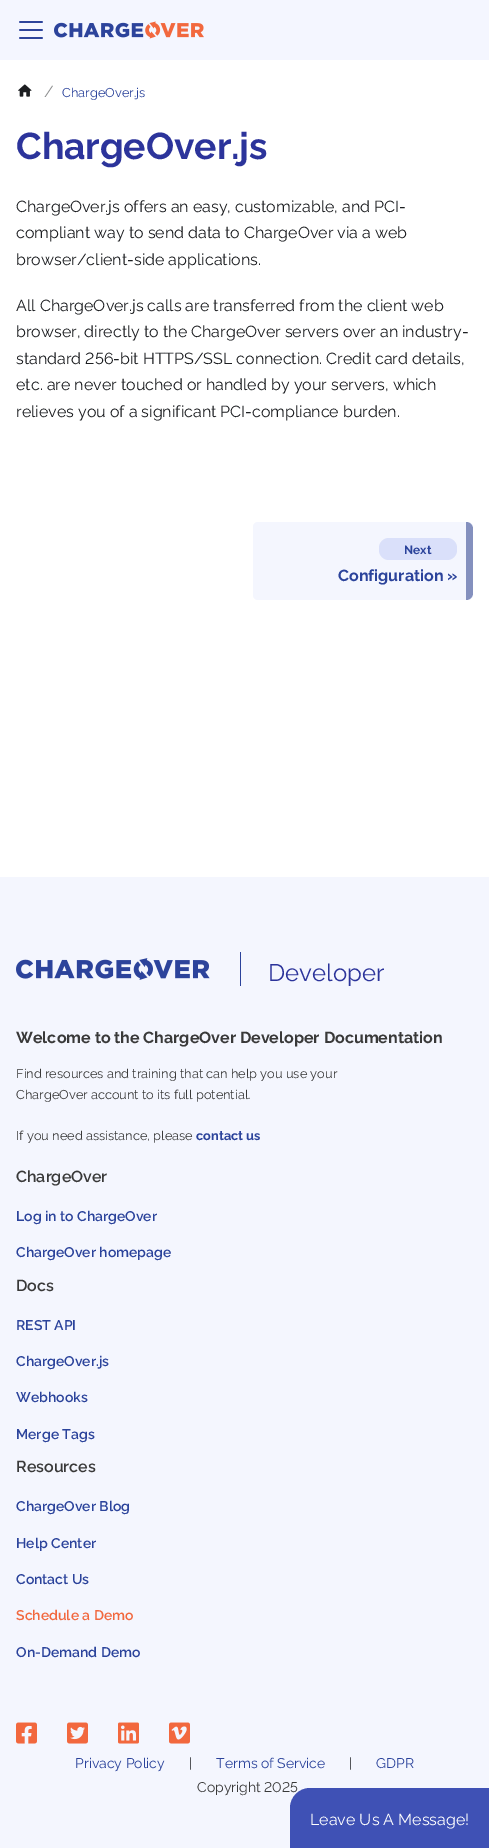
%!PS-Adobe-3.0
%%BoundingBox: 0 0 489 1848
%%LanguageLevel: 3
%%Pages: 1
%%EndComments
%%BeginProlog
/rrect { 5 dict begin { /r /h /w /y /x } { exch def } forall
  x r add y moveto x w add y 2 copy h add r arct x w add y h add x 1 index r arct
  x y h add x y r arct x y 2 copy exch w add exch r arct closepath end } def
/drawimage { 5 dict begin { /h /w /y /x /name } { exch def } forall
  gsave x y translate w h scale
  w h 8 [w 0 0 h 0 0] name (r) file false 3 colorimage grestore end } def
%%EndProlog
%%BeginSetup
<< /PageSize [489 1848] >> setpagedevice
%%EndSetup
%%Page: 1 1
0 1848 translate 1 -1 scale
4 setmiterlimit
1 setgray
0 0 489 1848 rectfill
0.957 0.965 1 setrgbcolor
0 0 489 60 rectfill
(images/1.raw) 19 21 24 18 drawimage
(images/2.raw) 54 21 150 18 drawimage
(images/3.raw) 18 84 14 13 drawimage
0.957 0.965 0.996 setrgbcolor
253 522 220 78 5 rrect fill
0.855 0.878 0.98 setrgbcolor
379 538 78 22 10 rrect fill
0.518 0.565 0.745 setrgbcolor
newpath 466 522 moveto 470 522 473 525 473 529 curveto 473 593 lineto 473 597 470 600 466 600 curveto closepath fill
0.957 0.965 0.996 setrgbcolor
0 877 489 971 rectfill
(images/4.raw) 16 958 194 22 drawimage
0.173 0.263 0.608 setrgbcolor
240 952 1 34 rectfill
(images/5.raw) 16 1722 21 22 drawimage
(images/6.raw) 67 1722 21 22 drawimage
(images/7.raw) 118 1722 21 22 drawimage
(images/8.raw) 169 1722 21 22 drawimage
/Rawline-Regular [16 0 0 -16 0 0] selectfont
0.557 0.561 0.565 setrgbcolor
44 97 moveto (/) show
/Rawline-Regular [12.8 0 0 -12.8 0 0] selectfont
0.169 0.263 0.608 setrgbcolor
62 97 moveto (ChargeOver.js) show
/Rawline-Bold [37.25 0 0 -37.25 0 0] selectfont
0.173 0.204 0.608 setrgbcolor
16 159 moveto (ChargeOver.js) show
/Rawline-Regular [16 0 0 -16 0 0] selectfont
0.11 0.118 0.129 setrgbcolor
16 212 moveto (ChargeOver.js offers an easy, customizable, and PCI-) show
16 238 moveto (compliant way to send data to ChargeOver via a web) show
16 265 moveto (browser/client-side applications.) show
16 311 moveto (All ChargeOver.js calls are transferred from the client web) show
16 337 moveto (browser, directly to the ChargeOver servers over an industry-) show
16 364 moveto (standard 256-bit HTTPS/SSL connection. Credit card details,) show
16 390 moveto (etc. are never touched or handled by your servers, which) show
16 417 moveto (relieves you of a significant PCI-compliance burden.) show
/Rawline-Bold [12 0 0 -12 0 0] selectfont
0.169 0.263 0.608 setrgbcolor
404 554 moveto (Next) show
/Rawline-Bold [16 0 0 -16 0 0] selectfont
338 581 moveto (Configuration ») show
/Rawline-Regular [24 0 0 -24 0 0] selectfont
0.173 0.204 0.608 setrgbcolor
268 981 moveto (Developer) show
/Rawline-Bold [16 0 0 -16 0 0] selectfont
0.224 setgray
16 1043 moveto (Welcome to the ChargeOver Developer Documentation) show
/Rawline-Regular [12.8 0 0 -12.8 0 0] selectfont
16 1078 moveto (Find resources and training that can help you use your) show
16 1099 moveto (ChargeOver account to its full potential.) show
16 1140 moveto (If you need assistance, please) show
/Rawline-Bold [12.8 0 0 -12.8 0 0] selectfont
0.169 0.263 0.608 setrgbcolor
196 1140 moveto (contact us) show
/Rawline-SemiBold [16 0 0 -16 0 0] selectfont
0.224 setgray
16 1182 moveto (ChargeOver) show
/Rawline-SemiBold [14 0 0 -14 0 0] selectfont
0.169 0.263 0.608 setrgbcolor
16 1221 moveto (Log in to ChargeOver) show
16 1257 moveto (ChargeOver homepage) show
/Rawline-SemiBold [16 0 0 -16 0 0] selectfont
0.224 setgray
16 1291 moveto (Docs) show
/Rawline-SemiBold [14 0 0 -14 0 0] selectfont
0.169 0.263 0.608 setrgbcolor
16 1330 moveto (REST API) show
16 1366 moveto (ChargeOver.js) show
16 1402 moveto (Webhooks) show
16 1439 moveto (Merge Tags) show
/Rawline-SemiBold [16 0 0 -16 0 0] selectfont
0.224 setgray
16 1472 moveto (Resources) show
/Rawline-SemiBold [14 0 0 -14 0 0] selectfont
0.169 0.263 0.608 setrgbcolor
16 1511 moveto (ChargeOver Blog) show
16 1548 moveto (Help Center) show
16 1584 moveto (Contact Us) show
0.949 0.408 0.243 setrgbcolor
16 1620 moveto (Schedule a Demo) show
0.169 0.263 0.608 setrgbcolor
16 1657 moveto (On-Demand Demo) show
/Rawline-Regular [14 0 0 -14 0 0] selectfont
75 1768 moveto (Privacy Policy) show
0.11 0.118 0.129 setrgbcolor
189 1768 moveto (|) show
0.169 0.263 0.608 setrgbcolor
216 1768 moveto (Terms of Service) show
0.11 0.118 0.129 setrgbcolor
349 1768 moveto (|) show
0.169 0.263 0.608 setrgbcolor
376 1768 moveto (GDPR) show
0.224 setgray
197 1792 moveto (Copyright 2025) show
0.247 0.318 0.71 setrgbcolor
newpath 310 1788 moveto 489 1788 lineto 489 1848 lineto 290 1848 lineto 290 1808 lineto 290 1797 299 1788 310 1788 curveto closepath fill
/Rawline-Regular [16 0 0 -16 0 0] selectfont
1 setgray
310 1825 moveto (Leave Us A Message!) show
showpage
%%EOF
